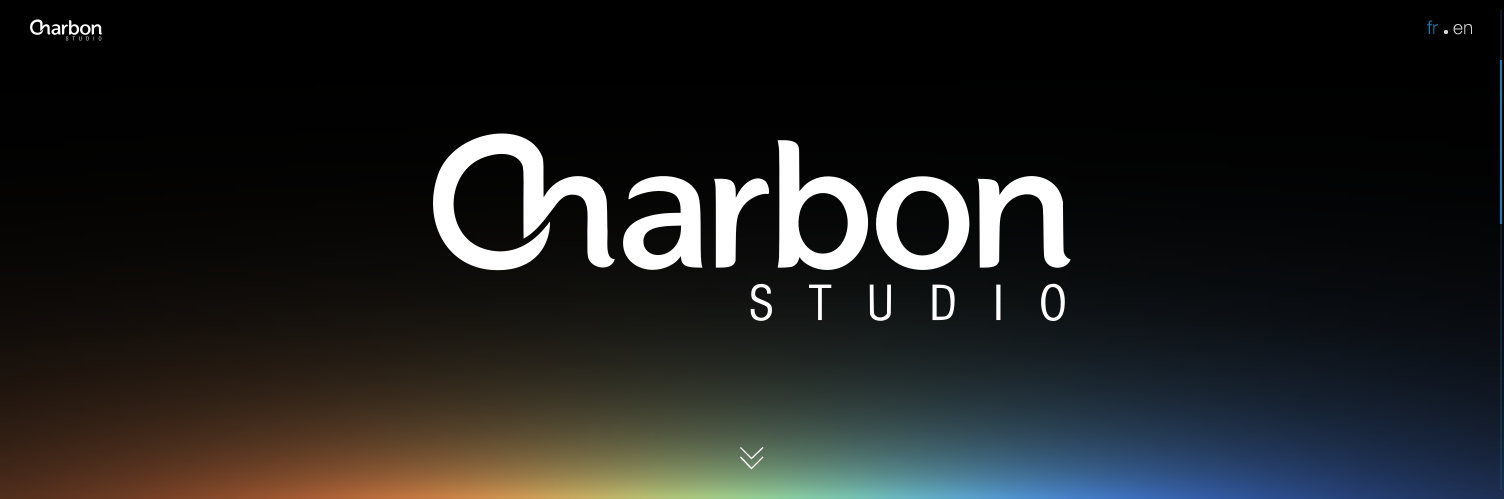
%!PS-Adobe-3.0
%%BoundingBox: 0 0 1504 499
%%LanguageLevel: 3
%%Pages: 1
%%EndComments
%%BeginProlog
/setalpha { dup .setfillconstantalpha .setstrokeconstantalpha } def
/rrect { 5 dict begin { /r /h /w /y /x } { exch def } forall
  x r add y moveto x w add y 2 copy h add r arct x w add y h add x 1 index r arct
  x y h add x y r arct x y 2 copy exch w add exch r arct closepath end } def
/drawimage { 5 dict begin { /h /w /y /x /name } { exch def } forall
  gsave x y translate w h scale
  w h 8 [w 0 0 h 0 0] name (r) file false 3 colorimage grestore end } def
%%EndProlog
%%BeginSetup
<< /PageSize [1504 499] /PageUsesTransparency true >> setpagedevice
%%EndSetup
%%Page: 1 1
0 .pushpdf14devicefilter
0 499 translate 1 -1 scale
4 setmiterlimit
1 setgray
0 0 1504 499 rectfill
(images/1.raw) 0 0 1504 499 drawimage
(images/2.raw) 433 133 638 188 drawimage
newpath 740.5 447.5 moveto 751.5 458.5 lineto 763 447.5 lineto 740.5 457 moveto 751.5 468.5 lineto 763 457 lineto stroke
0.2 setalpha
0.086 0.498 0.722 setrgbcolor
1500 10 2 479 rectfill
1 setalpha
1500 10 2 214 1 rrect fill
0.8 setalpha
0 setgray
1500 10 2 50 rectfill
1 setalpha
(images/3.raw) 30 19 72 22 drawimage
0.831 setgray
newpath 1446 32 2 0 360 arc closepath fill
/HelveticaNeue-Light [19 0 0 -19 0 0] selectfont
0.086 0.498 0.722 setrgbcolor
1427 34 moveto (fr) show
0.831 setgray
1453 34 moveto (en) show
.poppdf14devicefilter showpage
%%EOF
